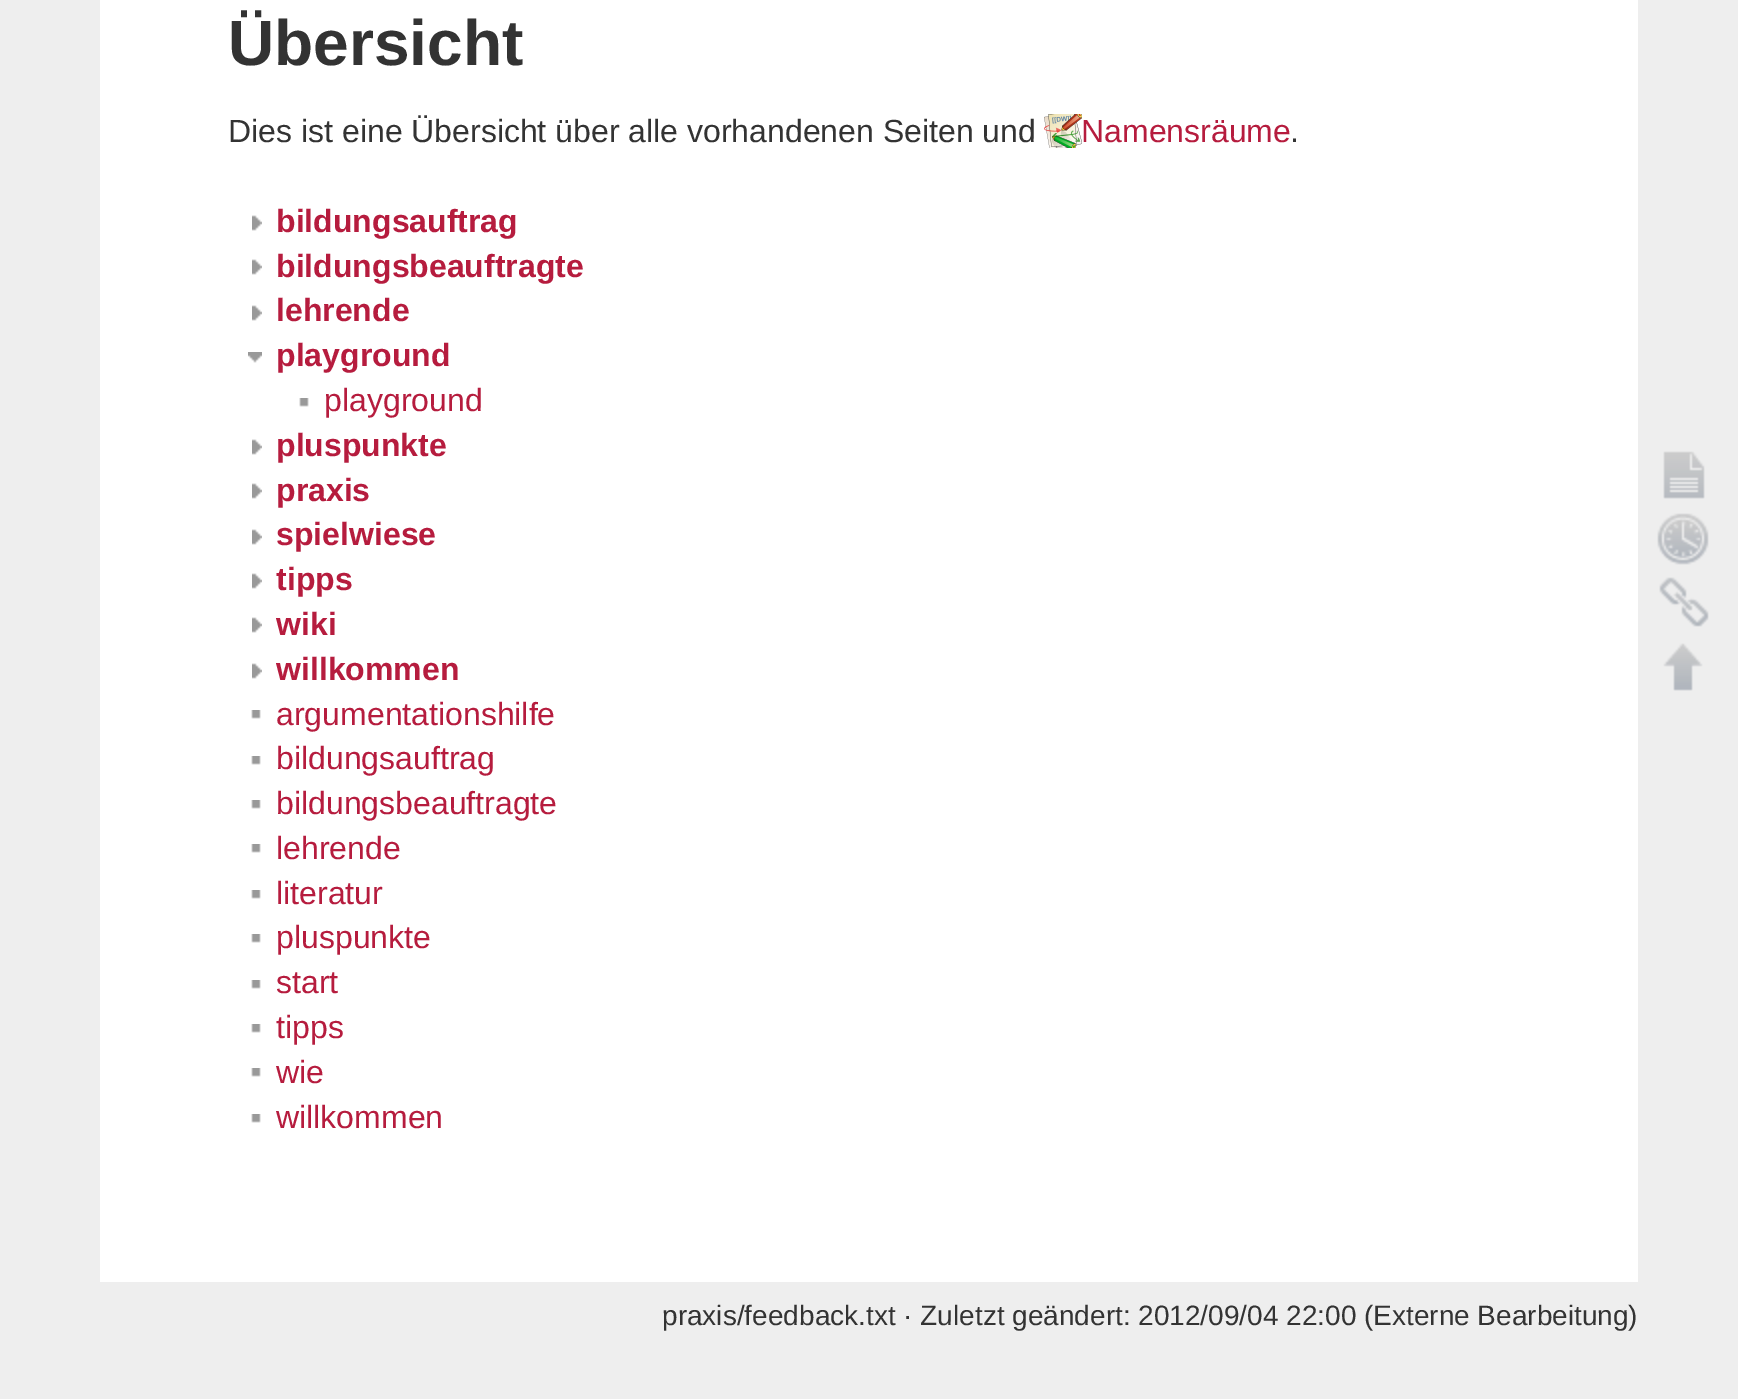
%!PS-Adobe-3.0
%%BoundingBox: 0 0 1738 1399
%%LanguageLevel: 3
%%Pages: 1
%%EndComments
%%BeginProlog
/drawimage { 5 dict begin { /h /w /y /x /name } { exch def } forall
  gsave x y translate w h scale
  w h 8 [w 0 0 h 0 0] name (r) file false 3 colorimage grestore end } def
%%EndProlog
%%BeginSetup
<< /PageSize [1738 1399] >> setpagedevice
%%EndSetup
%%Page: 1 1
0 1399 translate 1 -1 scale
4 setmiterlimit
0.933 setgray
0 0 1738 1399 rectfill
1 setgray
100 0 1538 1282 rectfill
(images/1.raw) 1044 114 38 34 drawimage
(images/2.raw) 252 215 10 16 drawimage
(images/2.raw) 252 259 10 16 drawimage
(images/2.raw) 252 305 10 16 drawimage
(images/3.raw) 248 352 14 11 drawimage
(images/4.raw) 299 398 10 9 drawimage
(images/2.raw) 252 439 10 16 drawimage
(images/2.raw) 252 483 10 16 drawimage
(images/2.raw) 252 529 10 16 drawimage
(images/2.raw) 252 573 10 16 drawimage
(images/2.raw) 252 617 10 16 drawimage
(images/2.raw) 252 663 10 16 drawimage
(images/4.raw) 251 710 10 9 drawimage
(images/4.raw) 251 756 10 9 drawimage
(images/4.raw) 251 800 10 9 drawimage
(images/4.raw) 251 844 10 9 drawimage
(images/4.raw) 251 890 10 9 drawimage
(images/4.raw) 251 934 10 9 drawimage
(images/4.raw) 251 980 10 9 drawimage
(images/4.raw) 251 1024 10 9 drawimage
(images/4.raw) 251 1068 10 9 drawimage
(images/4.raw) 251 1114 10 9 drawimage
(images/5.raw) 1663 451 42 48 drawimage
(images/6.raw) 1657 513 52 52 drawimage
(images/7.raw) 1659 577 50 50 drawimage
(images/8.raw) 1663 643 40 48 drawimage
/LiberationSans-Bold [64 0 0 -64 0 0] selectfont
0.2 setgray
228 65 moveto (Übersicht) show
/LiberationSans-Regular [32 0 0 -32 0 0] selectfont
228 142 moveto (Dies ist eine Übersicht über alle vorhandenen Seiten und) show
0.714 0.11 0.243 setrgbcolor
1081 142 moveto (Namensräume) show
0.2 setgray
1290 142 moveto (.) show
/LiberationSans-Bold [32 0 0 -32 0 0] selectfont
0.714 0.11 0.243 setrgbcolor
276 232 moveto (bildungsauftrag) show
276 277 moveto (bildungsbeauftragte) show
276 321 moveto (lehrende) show
276 366 moveto (playground) show
/LiberationSans-Regular [32 0 0 -32 0 0] selectfont
324 411 moveto (playground) show
/LiberationSans-Bold [32 0 0 -32 0 0] selectfont
276 456 moveto (pluspunkte) show
276 501 moveto (praxis) show
276 545 moveto (spielwiese) show
276 590 moveto (tipps) show
276 635 moveto (wiki) show
276 680 moveto (willkommen) show
/LiberationSans-Regular [32 0 0 -32 0 0] selectfont
276 725 moveto (argumentationshilfe) show
276 769 moveto (bildungsauftrag) show
276 814 moveto (bildungsbeauftragte) show
276 859 moveto (lehrende) show
276 904 moveto (literatur) show
276 948 moveto (pluspunkte) show
276 993 moveto (start) show
276 1038 moveto (tipps) show
276 1083 moveto (wie) show
276 1128 moveto (willkommen) show
/LiberationSans-Regular [28 0 0 -28 0 0] selectfont
0.2 setgray
662 1325 moveto (praxis/feedback.txt · Zuletzt geändert: 2012/09/04 22:00 \(Externe Bearbeitung\)) show
showpage
%%EOF
